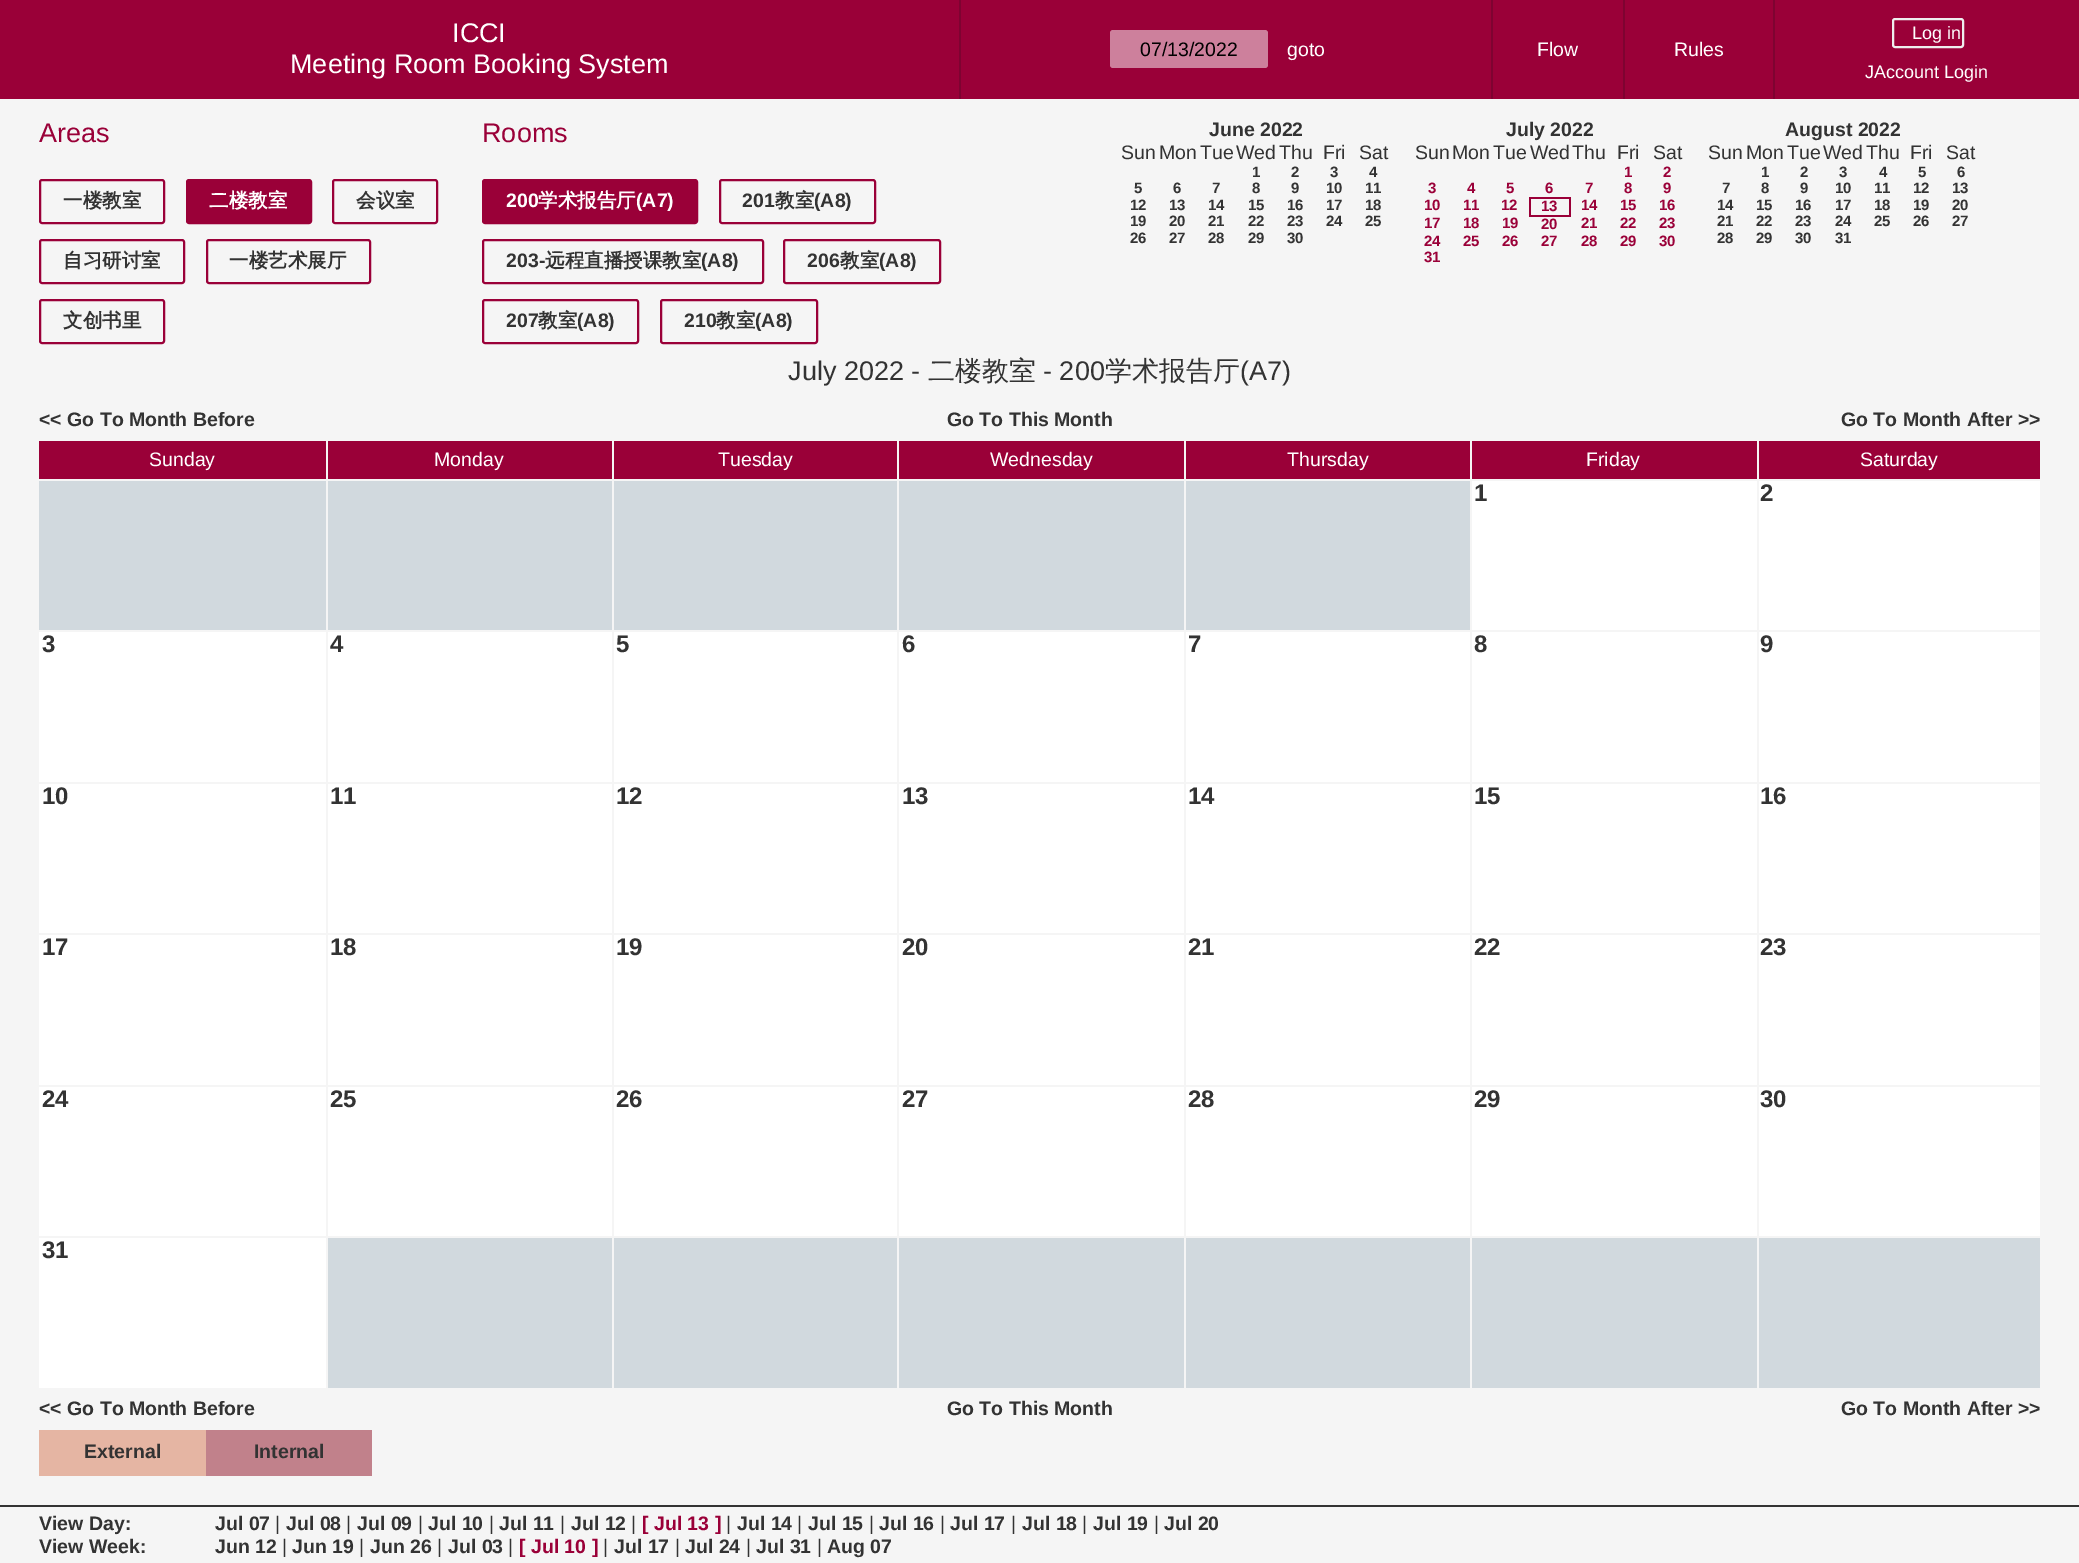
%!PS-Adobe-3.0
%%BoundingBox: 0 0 2079 1563
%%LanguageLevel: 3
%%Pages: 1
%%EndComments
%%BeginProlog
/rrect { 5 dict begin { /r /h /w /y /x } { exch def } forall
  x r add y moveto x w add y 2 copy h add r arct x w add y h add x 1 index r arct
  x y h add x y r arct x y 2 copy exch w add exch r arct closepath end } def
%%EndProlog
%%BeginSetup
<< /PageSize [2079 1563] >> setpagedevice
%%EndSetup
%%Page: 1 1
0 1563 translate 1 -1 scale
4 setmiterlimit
0.961 setgray
0 0 2079 1563 rectfill
0.604 0 0.22 setrgbcolor
0 0 2079 99 rectfill
0.494 0.012 0.192 setrgbcolor
959 0 2 99 rectfill
0.804 0.502 0.612 setrgbcolor
1110 30 158 38 3 rrect fill
0.494 0.012 0.192 setrgbcolor
1491 0 2 99 rectfill
1623 0 2 99 rectfill
1773 0 2 99 rectfill
0.933 setgray
2 setlinewidth
1893 19 70 28 2 rrect stroke
0.604 0 0.22 setrgbcolor
40 180 124 43 2 rrect stroke
187 180 124 43 2 rrect gsave fill grestore
stroke
333 180 104 43 2 rrect stroke
40 240 144 43 2 rrect stroke
207 240 163 43 2 rrect stroke
40 300 124 43 2 rrect stroke
483 180 214 43 2 rrect gsave fill grestore
stroke
720 180 155 43 2 rrect stroke
483 240 280 43 2 rrect stroke
784 240 156 43 2 rrect stroke
483 300 155 43 2 rrect stroke
661 300 156 43 2 rrect stroke
1529 197 42 2 rectfill
1569 197 2 19 rectfill
1529 215 42 2 rectfill
1529 197 2 19 rectfill
39 441 287 38 rectfill
328 441 284 38 rectfill
614 441 283 38 rectfill
899 441 285 38 rectfill
1186 441 284 38 rectfill
1472 441 285 38 rectfill
1759 441 281 38 rectfill
0.82 0.851 0.871 setrgbcolor
39 481 287 149 rectfill
328 481 284 149 rectfill
614 481 283 149 rectfill
899 481 285 149 rectfill
1186 481 284 149 rectfill
1 setgray
1472 481 285 149 rectfill
1759 481 281 149 rectfill
39 632 287 150 rectfill
328 632 284 150 rectfill
614 632 283 150 rectfill
899 632 285 150 rectfill
1186 632 284 150 rectfill
1472 632 285 150 rectfill
1759 632 281 150 rectfill
39 784 287 149 rectfill
328 784 284 149 rectfill
614 784 283 149 rectfill
899 784 285 149 rectfill
1186 784 284 149 rectfill
1472 784 285 149 rectfill
1759 784 281 149 rectfill
39 935 287 150 rectfill
328 935 284 150 rectfill
614 935 283 150 rectfill
899 935 285 150 rectfill
1186 935 284 150 rectfill
1472 935 285 150 rectfill
1759 935 281 150 rectfill
39 1087 287 149 rectfill
328 1087 284 149 rectfill
614 1087 283 149 rectfill
899 1087 285 149 rectfill
1186 1087 284 149 rectfill
1472 1087 285 149 rectfill
1759 1087 281 149 rectfill
39 1238 287 150 rectfill
0.82 0.851 0.871 setrgbcolor
328 1238 284 150 rectfill
614 1238 283 150 rectfill
899 1238 285 150 rectfill
1186 1238 284 150 rectfill
1472 1238 285 150 rectfill
1759 1238 281 150 rectfill
0.898 0.71 0.639 setrgbcolor
39 1430 167 46 rectfill
0.757 0.506 0.545 setrgbcolor
206 1430 166 46 rectfill
0.2 setgray
0 1505 2079 2 rectfill
/LiberationSans-Regular [27 0 0 -27 0 0] selectfont
1 setgray
452 42 moveto (ICCI) show
290 73 moveto (Meeting Room Booking System) show
/LiberationSans-Regular [19.5 0 0 -19.5 0 0] selectfont
0 setgray
1140 56 moveto (07/13/2022) show
1 setgray
1287 56 moveto (goto) show
1537 56 moveto (Flow) show
1674 56 moveto (Rules) show
/LiberationSans-Regular [18 0 0 -18 0 0] selectfont
1912 39 moveto (Log in) show
1865 78 moveto (JAccount Login) show
/LiberationSans-Regular [27 0 0 -27 0 0] selectfont
0.604 0 0.22 setrgbcolor
39 142 moveto (Areas) show
/WenQuanYiZenHei-Bold [19.5 0 0 -19.5 0 0] selectfont
0.2 setgray
63 207 moveto (一楼教室) show
1 setgray
209 207 moveto (二楼教室) show
0.2 setgray
356 207 moveto (会议室) show
63 267 moveto (自习研讨室) show
229 267 moveto (一楼艺术展厅) show
63 327 moveto (文创书里) show
/LiberationSans-Regular [27 0 0 -27 0 0] selectfont
0.604 0 0.22 setrgbcolor
482 142 moveto (Rooms) show
/LiberationSans-Bold [19.5 0 0 -19.5 0 0] selectfont
1 setgray
506 207 moveto (200) show
/WenQuanYiZenHei-Bold [19.5 0 0 -19.5 0 0] selectfont
538 207 moveto (学术报告厅) show
/LiberationSans-Bold [19.5 0 0 -19.5 0 0] selectfont
636 207 moveto (\(A7\)) show
0.2 setgray
742 207 moveto (201) show
/WenQuanYiZenHei-Bold [19.5 0 0 -19.5 0 0] selectfont
775 207 moveto (教室) show
/LiberationSans-Bold [19.5 0 0 -19.5 0 0] selectfont
814 207 moveto (\(A8\)) show
506 267 moveto (203-) show
/WenQuanYiZenHei-Bold [19.5 0 0 -19.5 0 0] selectfont
545 267 moveto (远程直播授课教室) show
/LiberationSans-Bold [19.5 0 0 -19.5 0 0] selectfont
701 267 moveto (\(A8\)) show
807 267 moveto (206) show
/WenQuanYiZenHei-Bold [19.5 0 0 -19.5 0 0] selectfont
840 267 moveto (教室) show
/LiberationSans-Bold [19.5 0 0 -19.5 0 0] selectfont
879 267 moveto (\(A8\)) show
506 327 moveto (207) show
/WenQuanYiZenHei-Bold [19.5 0 0 -19.5 0 0] selectfont
538 327 moveto (教室) show
/LiberationSans-Bold [19.5 0 0 -19.5 0 0] selectfont
577 327 moveto (\(A8\)) show
684 327 moveto (210) show
/WenQuanYiZenHei-Bold [19.5 0 0 -19.5 0 0] selectfont
716 327 moveto (教室) show
/LiberationSans-Bold [19.5 0 0 -19.5 0 0] selectfont
755 327 moveto (\(A8\)) show
1209 136 moveto (June 2022) show
/LiberationSans-Regular [19.5 0 0 -19.5 0 0] selectfont
1121 159 moveto (Sun) show
1159 159 moveto (Mon) show
1200 159 moveto (Tue) show
1236 159 moveto (Wed) show
1279 159 moveto (Thu) show
1323 159 moveto (Fri) show
1359 159 moveto (Sat) show
/LiberationSans-Bold [15 0 0 -15 0 0] selectfont
1252 177 moveto (1) show
1291 177 moveto (2) show
1330 177 moveto (3) show
1369 177 moveto (4) show
1134 193 moveto (5) show
1173 193 moveto (6) show
1212 193 moveto (7) show
1252 193 moveto (8) show
1291 193 moveto (9) show
1326 193 moveto (10) show
1365 193 moveto (11) show
1130 210 moveto (12) show
1169 210 moveto (13) show
1208 210 moveto (14) show
1248 210 moveto (15) show
1287 210 moveto (16) show
1326 210 moveto (17) show
1365 210 moveto (18) show
1130 226 moveto (19) show
1169 226 moveto (20) show
1208 226 moveto (21) show
1248 226 moveto (22) show
1287 226 moveto (23) show
1326 226 moveto (24) show
1365 226 moveto (25) show
1130 243 moveto (26) show
1169 243 moveto (27) show
1208 243 moveto (28) show
1248 243 moveto (29) show
1287 243 moveto (30) show
/LiberationSans-Bold [19.5 0 0 -19.5 0 0] selectfont
1506 136 moveto (July 2022) show
/LiberationSans-Regular [19.5 0 0 -19.5 0 0] selectfont
1415 159 moveto (Sun) show
1452 159 moveto (Mon) show
1493 159 moveto (Tue) show
1530 159 moveto (Wed) show
1572 159 moveto (Thu) show
1617 159 moveto (Fri) show
1653 159 moveto (Sat) show
/LiberationSans-Bold [15 0 0 -15 0 0] selectfont
0.604 0 0.22 setrgbcolor
1624 177 moveto (1) show
1663 177 moveto (2) show
1428 193 moveto (3) show
1467 193 moveto (4) show
1506 193 moveto (5) show
1545 193 moveto (6) show
1585 193 moveto (7) show
1624 193 moveto (8) show
1663 193 moveto (9) show
1424 210 moveto (10) show
1463 210 moveto (11) show
1501 210 moveto (12) show
1541 211 moveto (13) show
1581 210 moveto (14) show
1620 210 moveto (15) show
1659 210 moveto (16) show
1424 228 moveto (17) show
1463 228 moveto (18) show
1502 228 moveto (19) show
1541 229 moveto (20) show
1581 228 moveto (21) show
1620 228 moveto (22) show
1659 228 moveto (23) show
1424 246 moveto (24) show
1463 246 moveto (25) show
1502 246 moveto (26) show
1541 246 moveto (27) show
1581 246 moveto (28) show
1620 246 moveto (29) show
1659 246 moveto (30) show
1424 262 moveto (31) show
/LiberationSans-Bold [19.5 0 0 -19.5 0 0] selectfont
0.2 setgray
1785 136 moveto (August 2022) show
/LiberationSans-Regular [19.5 0 0 -19.5 0 0] selectfont
1708 159 moveto (Sun) show
1746 159 moveto (Mon) show
1787 159 moveto (Tue) show
1823 159 moveto (Wed) show
1866 159 moveto (Thu) show
1910 159 moveto (Fri) show
1946 159 moveto (Sat) show
/LiberationSans-Bold [15 0 0 -15 0 0] selectfont
1761 177 moveto (1) show
1800 177 moveto (2) show
1839 177 moveto (3) show
1879 177 moveto (4) show
1918 177 moveto (5) show
1957 177 moveto (6) show
1722 193 moveto (7) show
1761 193 moveto (8) show
1800 193 moveto (9) show
1835 193 moveto (10) show
1874 193 moveto (11) show
1913 193 moveto (12) show
1952 193 moveto (13) show
1717 210 moveto (14) show
1756 210 moveto (15) show
1795 210 moveto (16) show
1835 210 moveto (17) show
1874 210 moveto (18) show
1913 210 moveto (19) show
1952 210 moveto (20) show
1717 226 moveto (21) show
1756 226 moveto (22) show
1795 226 moveto (23) show
1835 226 moveto (24) show
1874 226 moveto (25) show
1913 226 moveto (26) show
1952 226 moveto (27) show
1717 243 moveto (28) show
1756 243 moveto (29) show
1795 243 moveto (30) show
1835 243 moveto (31) show
/LiberationSans-Regular [27 0 0 -27 0 0] selectfont
788 380 moveto (July 2022 -) show
/WenQuanYiZenHei-Medium [27 0 0 -27 0 0] selectfont
928 380 moveto (二楼教室) show
/LiberationSans-Regular [27 0 0 -27 0 0] selectfont
1043 380 moveto (- 200) show
/WenQuanYiZenHei-Medium [27 0 0 -27 0 0] selectfont
1105 380 moveto (学术报告厅) show
/LiberationSans-Regular [27 0 0 -27 0 0] selectfont
1240 380 moveto (\(A7\)) show
/LiberationSans-Bold [19.5 0 0 -19.5 0 0] selectfont
39 426 moveto (<< Go To Month Before) show
947 426 moveto (Go To This Month) show
1841 426 moveto (Go To Month After >>) show
/LiberationSans-Regular [19.5 0 0 -19.5 0 0] selectfont
1 setgray
149 466 moveto (Sunday) show
434 466 moveto (Monday) show
718 466 moveto (Tuesday) show
990 466 moveto (Wednesday) show
1287 466 moveto (Thursday) show
1586 466 moveto (Friday) show
1860 466 moveto (Saturday) show
/LiberationSans-Bold [24 0 0 -24 0 0] selectfont
0.2 setgray
1474 501 moveto (1) show
1760 501 moveto (2) show
42 652 moveto (3) show
330 652 moveto (4) show
616 652 moveto (5) show
902 652 moveto (6) show
1188 652 moveto (7) show
1474 652 moveto (8) show
1760 652 moveto (9) show
42 804 moveto (10) show
330 804 moveto (11) show
616 804 moveto (12) show
902 804 moveto (13) show
1188 804 moveto (14) show
1474 804 moveto (15) show
1760 804 moveto (16) show
42 955 moveto (17) show
330 955 moveto (18) show
616 955 moveto (19) show
902 955 moveto (20) show
1188 955 moveto (21) show
1474 955 moveto (22) show
1760 955 moveto (23) show
42 1107 moveto (24) show
330 1107 moveto (25) show
616 1107 moveto (26) show
902 1107 moveto (27) show
1188 1107 moveto (28) show
1474 1107 moveto (29) show
1760 1107 moveto (30) show
42 1258 moveto (31) show
/LiberationSans-Bold [19.5 0 0 -19.5 0 0] selectfont
39 1415 moveto (<< Go To Month Before) show
947 1415 moveto (Go To This Month) show
1841 1415 moveto (Go To Month After >>) show
84 1458 moveto (External) show
254 1458 moveto (Internal) show
39 1530 moveto (View Day:) show
215 1530 moveto (Jul 07) show
/LiberationSans-Regular [19.5 0 0 -19.5 0 0] selectfont
275 1530 moveto (|) show
/LiberationSans-Bold [19.5 0 0 -19.5 0 0] selectfont
286 1530 moveto (Jul 08) show
/LiberationSans-Regular [19.5 0 0 -19.5 0 0] selectfont
346 1530 moveto (|) show
/LiberationSans-Bold [19.5 0 0 -19.5 0 0] selectfont
357 1530 moveto (Jul 09) show
/LiberationSans-Regular [19.5 0 0 -19.5 0 0] selectfont
418 1530 moveto (|) show
/LiberationSans-Bold [19.5 0 0 -19.5 0 0] selectfont
428 1530 moveto (Jul 10) show
/LiberationSans-Regular [19.5 0 0 -19.5 0 0] selectfont
489 1530 moveto (|) show
/LiberationSans-Bold [19.5 0 0 -19.5 0 0] selectfont
499 1530 moveto (Jul 11) show
/LiberationSans-Regular [19.5 0 0 -19.5 0 0] selectfont
560 1530 moveto (|) show
/LiberationSans-Bold [19.5 0 0 -19.5 0 0] selectfont
571 1530 moveto (Jul 12) show
/LiberationSans-Regular [19.5 0 0 -19.5 0 0] selectfont
631 1530 moveto (|) show
/LiberationSans-Bold [19.5 0 0 -19.5 0 0] selectfont
0.604 0 0.22 setrgbcolor
642 1530 moveto ([ Jul 13 ]) show
/LiberationSans-Regular [19.5 0 0 -19.5 0 0] selectfont
0.2 setgray
726 1530 moveto (|) show
/LiberationSans-Bold [19.5 0 0 -19.5 0 0] selectfont
737 1530 moveto (Jul 14) show
/LiberationSans-Regular [19.5 0 0 -19.5 0 0] selectfont
797 1530 moveto (|) show
/LiberationSans-Bold [19.5 0 0 -19.5 0 0] selectfont
808 1530 moveto (Jul 15) show
/LiberationSans-Regular [19.5 0 0 -19.5 0 0] selectfont
869 1530 moveto (|) show
/LiberationSans-Bold [19.5 0 0 -19.5 0 0] selectfont
879 1530 moveto (Jul 16) show
/LiberationSans-Regular [19.5 0 0 -19.5 0 0] selectfont
940 1530 moveto (|) show
/LiberationSans-Bold [19.5 0 0 -19.5 0 0] selectfont
950 1530 moveto (Jul 17) show
/LiberationSans-Regular [19.5 0 0 -19.5 0 0] selectfont
1011 1530 moveto (|) show
/LiberationSans-Bold [19.5 0 0 -19.5 0 0] selectfont
1022 1530 moveto (Jul 18) show
/LiberationSans-Regular [19.5 0 0 -19.5 0 0] selectfont
1082 1530 moveto (|) show
/LiberationSans-Bold [19.5 0 0 -19.5 0 0] selectfont
1093 1530 moveto (Jul 19) show
/LiberationSans-Regular [19.5 0 0 -19.5 0 0] selectfont
1154 1530 moveto (|) show
/LiberationSans-Bold [19.5 0 0 -19.5 0 0] selectfont
1164 1530 moveto (Jul 20) show
39 1553 moveto (View Week:) show
215 1553 moveto (Jun 12) show
/LiberationSans-Regular [19.5 0 0 -19.5 0 0] selectfont
282 1553 moveto (|) show
/LiberationSans-Bold [19.5 0 0 -19.5 0 0] selectfont
292 1553 moveto (Jun 19) show
/LiberationSans-Regular [19.5 0 0 -19.5 0 0] selectfont
359 1553 moveto (|) show
/LiberationSans-Bold [19.5 0 0 -19.5 0 0] selectfont
370 1553 moveto (Jun 26) show
/LiberationSans-Regular [19.5 0 0 -19.5 0 0] selectfont
437 1553 moveto (|) show
/LiberationSans-Bold [19.5 0 0 -19.5 0 0] selectfont
448 1553 moveto (Jul 03) show
/LiberationSans-Regular [19.5 0 0 -19.5 0 0] selectfont
508 1553 moveto (|) show
/LiberationSans-Bold [19.5 0 0 -19.5 0 0] selectfont
0.604 0 0.22 setrgbcolor
519 1553 moveto ([ Jul 10 ]) show
/LiberationSans-Regular [19.5 0 0 -19.5 0 0] selectfont
0.2 setgray
603 1553 moveto (|) show
/LiberationSans-Bold [19.5 0 0 -19.5 0 0] selectfont
614 1553 moveto (Jul 17) show
/LiberationSans-Regular [19.5 0 0 -19.5 0 0] selectfont
675 1553 moveto (|) show
/LiberationSans-Bold [19.5 0 0 -19.5 0 0] selectfont
685 1553 moveto (Jul 24) show
/LiberationSans-Regular [19.5 0 0 -19.5 0 0] selectfont
746 1553 moveto (|) show
/LiberationSans-Bold [19.5 0 0 -19.5 0 0] selectfont
756 1553 moveto (Jul 31) show
/LiberationSans-Regular [19.5 0 0 -19.5 0 0] selectfont
817 1553 moveto (|) show
/LiberationSans-Bold [19.5 0 0 -19.5 0 0] selectfont
827 1553 moveto (Aug 07) show
showpage
%%EOF
